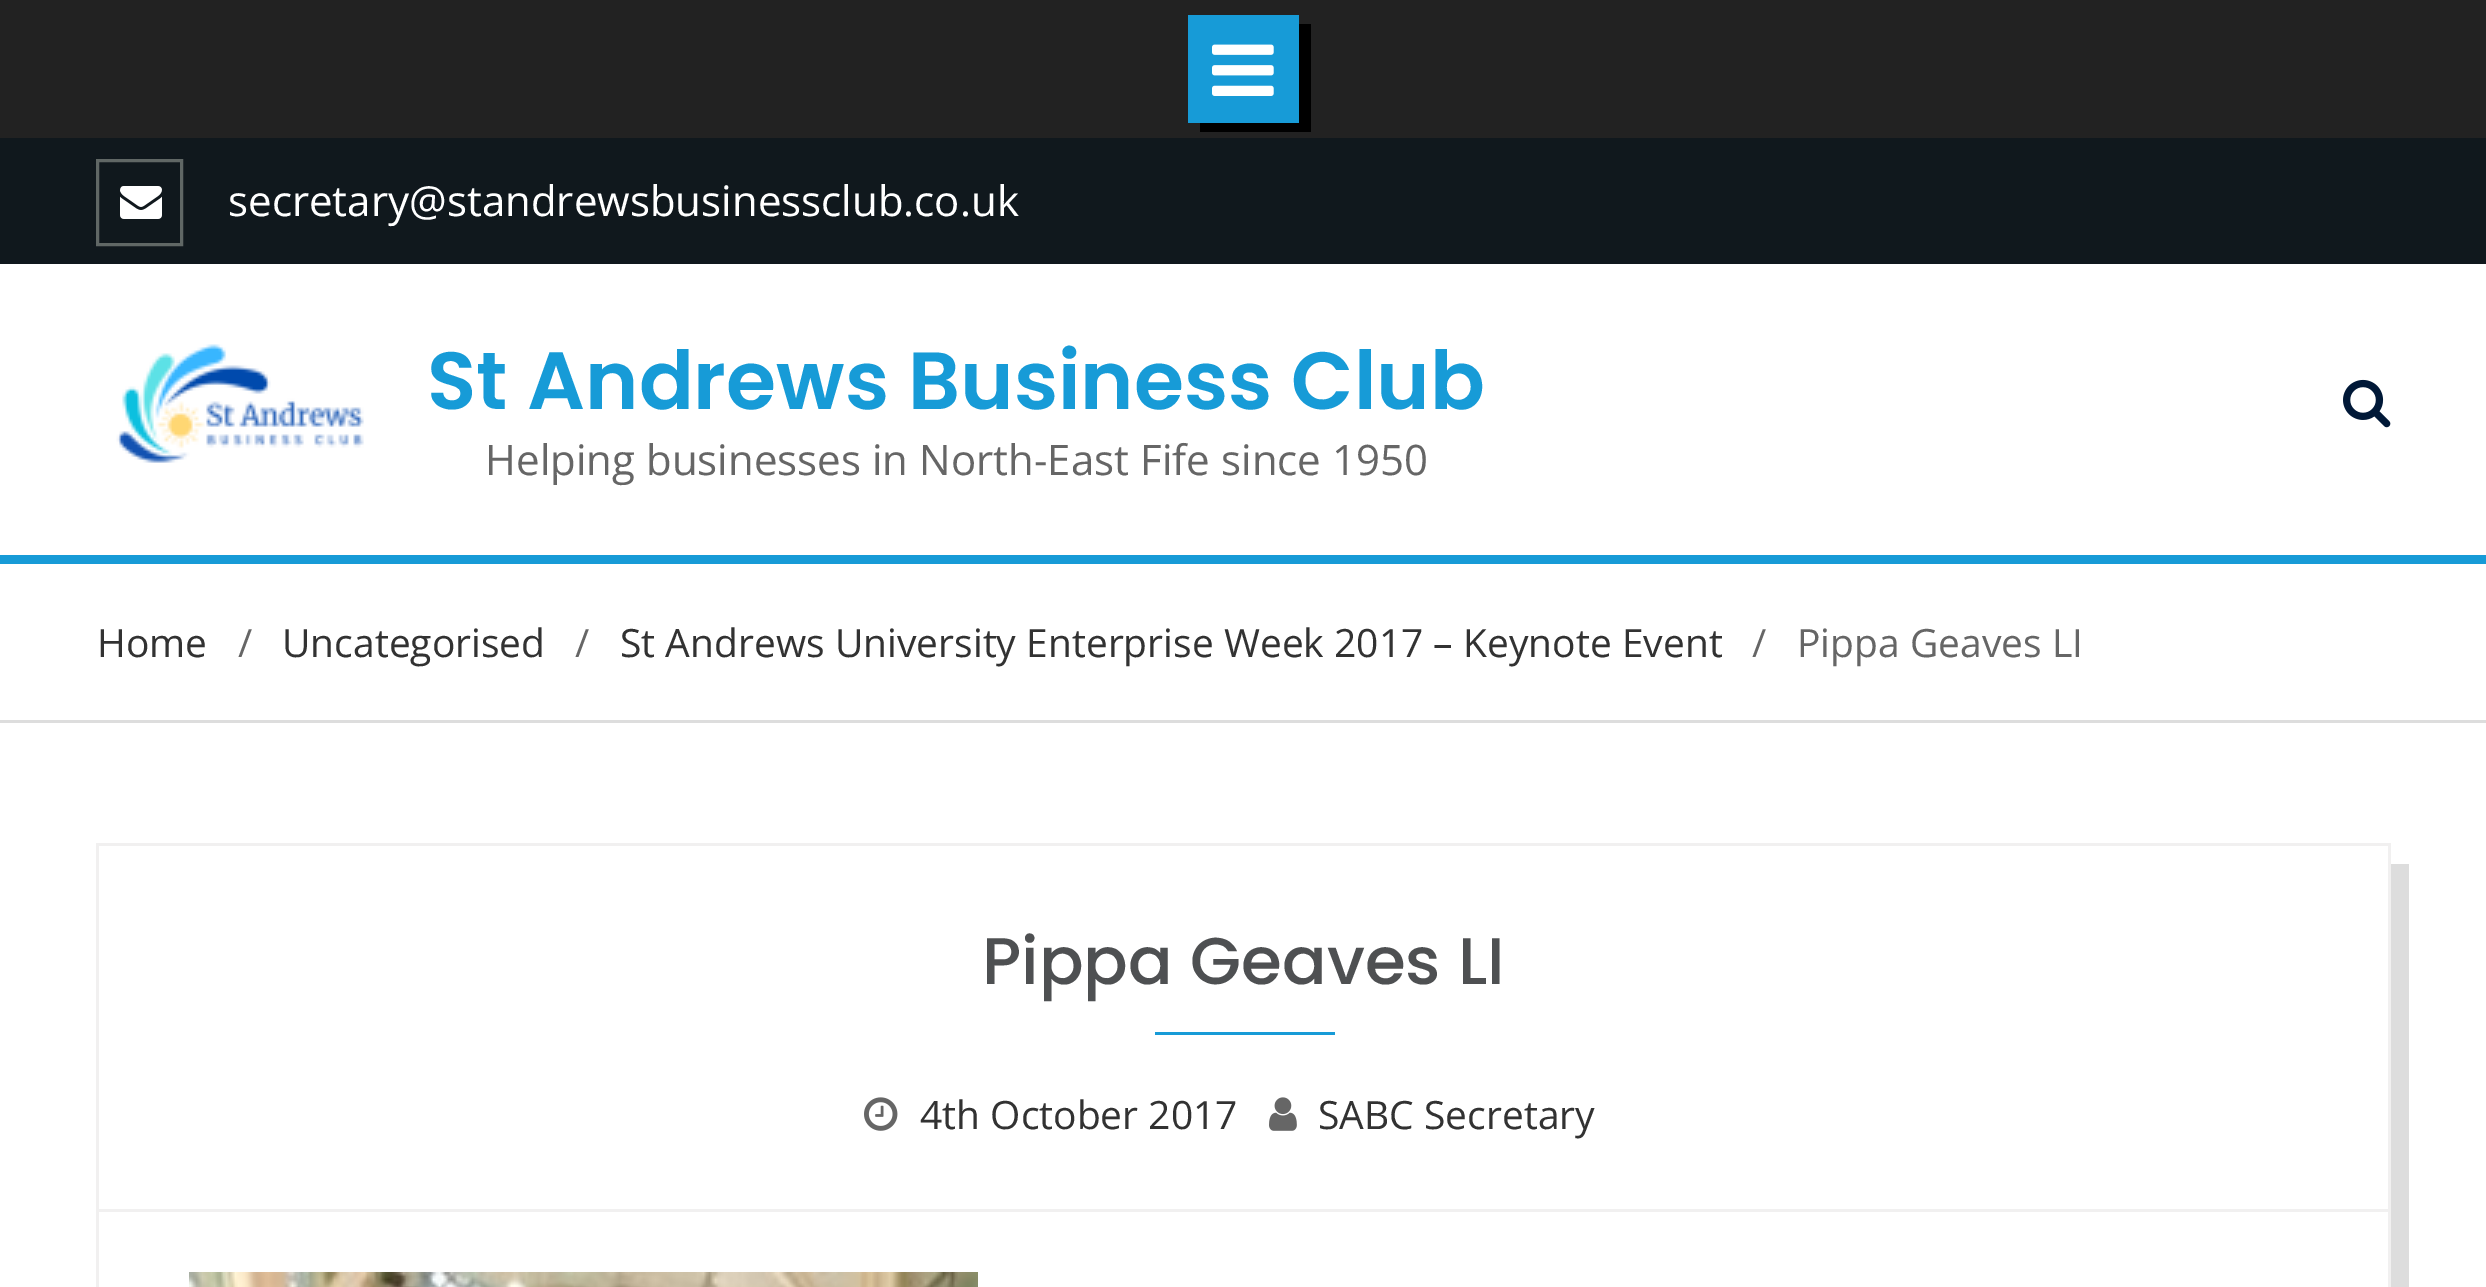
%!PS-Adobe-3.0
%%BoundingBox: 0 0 2486 1287
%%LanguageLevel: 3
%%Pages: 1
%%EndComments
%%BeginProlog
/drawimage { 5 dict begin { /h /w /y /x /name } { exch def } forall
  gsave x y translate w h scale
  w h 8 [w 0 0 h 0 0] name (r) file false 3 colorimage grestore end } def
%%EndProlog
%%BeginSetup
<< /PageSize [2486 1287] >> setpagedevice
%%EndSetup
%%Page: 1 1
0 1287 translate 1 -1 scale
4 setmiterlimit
1 setgray
0 0 2486 1287 rectfill
0.133 setgray
0 0 2486 138 rectfill
0 setgray
newpath 1200 123 moveto 1200 132 lineto 1311 132 lineto 1311 24 lineto 1299 24 lineto 1299 123 lineto closepath fill
0.09 0.608 0.843 setrgbcolor
1188 15 111 108 rectfill
(images/1.raw) 1212 44 62 52 drawimage
0.063 0.094 0.114 setrgbcolor
0 138 2486 126 rectfill
0.376 0.404 0.396 setrgbcolor
3 setlinewidth
97.5 160.5 84 84 rectstroke
(images/2.raw) 120 186 42 33 drawimage
(images/3.raw) 116 344 248 119 drawimage
(images/4.raw) 2343 379 48 49 drawimage
0.09 0.608 0.843 setrgbcolor
0 555 2486 9 rectfill
0.867 setgray
0 720 2486 3 rectfill
newpath 114 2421 moveto 114 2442 lineto 2409 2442 lineto 2409 864 lineto 2391 864 lineto 2391 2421 lineto closepath fill
0.945 0.941 0.941 setrgbcolor
2388 843 3 444 rectfill
96 843 3 444 rectfill
99 843 2289 3 rectfill
0.09 0.608 0.843 setrgbcolor
1155 1032 180 3 rectfill
(images/5.raw) 864 1097 34 34 drawimage
(images/6.raw) 1269 1097 28 34 drawimage
0.945 0.941 0.941 setrgbcolor
99 1209 2289 3 rectfill
(images/7.raw) 189 1272 789 15 drawimage
/OpenSans-Regular [42 0 0 -42 0 0] selectfont
1 setgray
228 216 moveto (secretary@standrewsbusinessclub.co.uk) show
/Poppins-SemiBold [81 0 0 -81 0 0] selectfont
0.09 0.608 0.843 setrgbcolor
427 409 moveto (St Andrews Business Club) show
/OpenSans-Regular [42 0 0 -42 0 0] selectfont
0.4 setgray
485 475 moveto (Helping businesses in North-East Fife since 1950) show
/OpenSans-Regular [39 0 0 -39 0 0] selectfont
0.196 setgray
97 657 moveto (Home) show
0.4 setgray
238 657 moveto (/) show
0.196 setgray
282 657 moveto (Uncategorised) show
0.4 setgray
575 657 moveto (/) show
0.196 setgray
620 657 moveto (St Andrews University Enterprise Week 2017 – Keynote Event) show
0.4 setgray
1752 657 moveto (/) show
1797 657 moveto (Pippa Geaves LI) show
/Poppins-Medium [66 0 0 -66 0 0] selectfont
0.306 0.314 0.322 setrgbcolor
982 984 moveto (Pippa Geaves LI) show
/OpenSans-Regular [39 0 0 -39 0 0] selectfont
0.196 setgray
920 1129 moveto (4th October 2017) show
1318 1129 moveto (SABC Secretary) show
showpage
%%EOF
